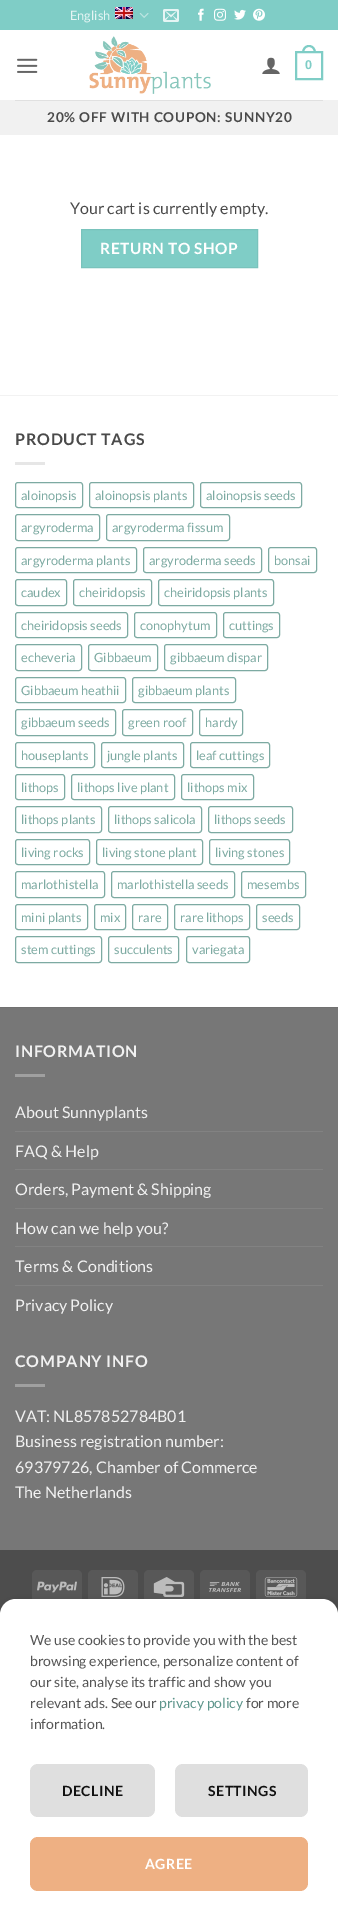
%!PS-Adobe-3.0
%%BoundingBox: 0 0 338 1911
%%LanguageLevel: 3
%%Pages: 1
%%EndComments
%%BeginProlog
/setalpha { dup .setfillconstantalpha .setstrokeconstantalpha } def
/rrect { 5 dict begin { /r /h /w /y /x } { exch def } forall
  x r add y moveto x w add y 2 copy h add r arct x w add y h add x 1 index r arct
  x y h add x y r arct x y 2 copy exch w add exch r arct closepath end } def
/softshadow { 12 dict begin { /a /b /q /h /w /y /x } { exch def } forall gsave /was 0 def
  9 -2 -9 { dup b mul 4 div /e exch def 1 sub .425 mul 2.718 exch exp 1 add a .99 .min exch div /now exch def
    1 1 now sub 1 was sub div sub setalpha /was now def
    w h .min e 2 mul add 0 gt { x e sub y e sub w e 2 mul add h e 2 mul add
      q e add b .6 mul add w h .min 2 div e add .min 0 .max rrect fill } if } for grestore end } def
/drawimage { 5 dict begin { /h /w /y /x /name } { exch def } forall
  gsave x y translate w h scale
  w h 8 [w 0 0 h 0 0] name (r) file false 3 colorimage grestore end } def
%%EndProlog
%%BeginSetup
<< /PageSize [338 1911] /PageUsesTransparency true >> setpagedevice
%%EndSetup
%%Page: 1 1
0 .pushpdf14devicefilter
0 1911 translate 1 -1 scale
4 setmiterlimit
1 setgray
0 0 338 1911 rectfill
0.498 0.804 0.776 setrgbcolor
0 0 338 30 rectfill
(images/1.raw) 115 7 18 12 drawimage
(images/2.raw) 139 13 10 5 drawimage
(images/3.raw) 163 9 16 13 drawimage
(images/4.raw) 198 8 6 13 drawimage
(images/5.raw) 214 8 12 13 drawimage
(images/6.raw) 234 9 12 11 drawimage
(images/7.raw) 253 8 12 13 drawimage
(images/8.raw) 17 58 21 15 drawimage
(images/9.raw) 89 36 122 58 drawimage
(images/10.raw) 262 57 18 17 drawimage
2 setlinewidth
296 52 26 27 rectstroke
newpath 309 45 moveto 313.5 45 316 49 316 53 curveto 302 53 lineto 302 49 304.5 45 309 45 curveto closepath 309 47 moveto 312.5 47 314 50 314 53 curveto 304 53 lineto 304 50 305.5 47 309 47 curveto closepath eofill
0.945 setgray
0 100 338 35 rectfill
0.878 setgray
15 100 308 1 rectfill
0.498 0.804 0.776 setrgbcolor
newpath 81.5 229.5 moveto 257.5 229.5 lineto 257.5 267.5 lineto 81.5 267.5 lineto closepath gsave fill grestore
0.475 0.765 0.737 setrgbcolor
1 setlinewidth
stroke
0.949 setgray
0 395 338 1 rectfill
0.902 setgray
15 462 30 3 rectfill
0.49 0.667 0.635 setrgbcolor
15.5 482.5 67 25 2.5 rrect stroke
89.5 482.5 104 25 2.5 rrect stroke
200.5 482.5 101 25 2.5 rrect stroke
15.5 514.5 84 26 2.5 rrect stroke
106.5 514.5 123 26 2.5 rrect stroke
15.5 547.5 121 25 2.5 rrect stroke
143.5 547.5 118 25 2.5 rrect stroke
268.5 547.5 48 25 2.5 rrect stroke
15.5 579.5 51 26 2.5 rrect stroke
73.5 579.5 78 26 2.5 rrect stroke
158.5 579.5 115 26 2.5 rrect stroke
15.5 612.5 112 25 2.5 rrect stroke
134.5 612.5 82 25 2.5 rrect stroke
223.5 612.5 56 25 2.5 rrect stroke
15.5 644.5 66 26 2.5 rrect stroke
88.5 644.5 69 26 2.5 rrect stroke
164.5 644.5 103 26 2.5 rrect stroke
15.5 677.5 110 25 2.5 rrect stroke
132.5 677.5 103 25 2.5 rrect stroke
15.5 709.5 100 26 2.5 rrect stroke
122.5 709.5 70 26 2.5 rrect stroke
199.5 709.5 43 26 2.5 rrect stroke
15.5 742.5 79 25 2.5 rrect stroke
101.5 742.5 82 25 2.5 rrect stroke
190.5 742.5 79 25 2.5 rrect stroke
15.5 774.5 49 25 2.5 rrect stroke
71.5 774.5 103 25 2.5 rrect stroke
181.5 774.5 72 25 2.5 rrect stroke
15.5 806.5 86 26 2.5 rrect stroke
108.5 806.5 93 26 2.5 rrect stroke
208.5 806.5 84 26 2.5 rrect stroke
15.5 839.5 74 25 2.5 rrect stroke
96.5 839.5 106 25 2.5 rrect stroke
209.5 839.5 80 25 2.5 rrect stroke
15.5 871.5 89 26 2.5 rrect stroke
111.5 871.5 123 26 2.5 rrect stroke
241.5 871.5 64 26 2.5 rrect stroke
15.5 904.5 72 25 2.5 rrect stroke
94.5 904.5 31 25 2.5 rrect stroke
132.5 904.5 35 25 2.5 rrect stroke
174.5 904.5 75 25 2.5 rrect stroke
256.5 904.5 43 25 2.5 rrect stroke
15.5 936.5 86 26 2.5 rrect stroke
108.5 936.5 70 26 2.5 rrect stroke
186.5 936.5 63 26 2.5 rrect stroke
0.467 setgray
0 1008 338 542 rectfill
0.443 setgray
0 1007 338 1 rectfill
0.627 setgray
15 1074 30 3 rectfill
0.51 setgray
15 1131 308 1 rectfill
15 1169 308 1 rectfill
15 1208 308 1 rectfill
15 1246 308 1 rectfill
15 1285 308 1 rectfill
0.627 setgray
15 1384 30 3 rectfill
0.302 setgray
0 1550 338 65 rectfill
0.345 setgray
32 1570 50 32 5 rrect fill
(images/11.raw) 37 1581 40 12 drawimage
88 1570 50 32 5 rrect fill
(images/12.raw) 101 1577 24 20 drawimage
144 1570 50 32 5 rrect fill
(images/13.raw) 153 1577 32 20 drawimage
200 1570 50 32 5 rrect fill
(images/14.raw) 209 1582 32 10 drawimage
256 1570 50 32 5 rrect fill
(images/15.raw) 264 1577 34 20 drawimage
0 setgray
2 1602 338 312 16 3.5 0.2 softshadow
1 setgray
newpath 16 1599 moveto 322 1599 lineto 331 1599 338 1606 338 1615 curveto 338 1911 lineto 0 1911 lineto 0 1615 lineto 0 1606 7 1599 16 1599 curveto closepath fill
0.875 setgray
30 1764 125 53 8 rrect fill
175 1764 133 53 8 rrect fill
0.933 0.69 0.514 setrgbcolor
30 1837 278 54 8 rrect fill
/Lato-Regular [12.75 0 0 -12.75 0 0] selectfont
0.898 0.961 0.957 setrgbcolor
70 20 moveto (English) show
/LiberationSans-Bold [12.75 0 0 -12.75 0 0] selectfont
0.498 0.804 0.776 setrgbcolor
305 69 moveto (0) show
/Lato-Bold [13.6 0 0 -13.6 0 0] selectfont
0.29 setgray
47 122 moveto 0.7 0 (20% OFF WITH COUPON: SUNNY20) ashow
/Lato-Regular [16 0 0 -16 0 0] selectfont
70 214 moveto (Your cart is currently empty.) show
/Lato-Bold [15.5 0 0 -15.5 0 0] selectfont
1 setgray
100 254 moveto 0.5 0 (RETURN TO SHOP) ashow
/Lato-Bold [16 0 0 -16 0 0] selectfont
0.29 setgray
15 445 moveto 0.75 0 (PRODUCT TAGS) ashow
/Lato-Regular [12.75 0 0 -12.75 0 0] selectfont
0.49 0.667 0.635 setrgbcolor
21 500 moveto (aloinopsis) show
95 500 moveto (aloinopsis plants) show
206 500 moveto (aloinopsis seeds) show
21 532 moveto (argyroderma) show
112 532 moveto (argyroderma fissum) show
21 565 moveto (argyroderma plants) show
149 565 moveto (argyroderma seeds) show
274 565 moveto (bonsai) show
21 597 moveto (caudex) show
79 597 moveto (cheiridopsis) show
164 597 moveto (cheiridopsis plants) show
21 630 moveto (cheiridopsis seeds) show
140 630 moveto (conophytum) show
229 630 moveto (cuttings) show
21 662 moveto (echeveria) show
94 662 moveto (Gibbaeum) show
170 662 moveto (gibbaeum dispar) show
21 695 moveto (Gibbaeum heathii) show
138 695 moveto (gibbaeum plants) show
21 727 moveto (gibbaeum seeds) show
128 727 moveto (green roof) show
205 727 moveto (hardy) show
21 760 moveto (houseplants) show
107 760 moveto (jungle plants) show
196 760 moveto (leaf cuttings) show
21 792 moveto (lithops) show
77 792 moveto (lithops live plant) show
187 792 moveto (lithops mix) show
21 824 moveto (lithops plants) show
114 824 moveto (lithops salicola) show
214 824 moveto (lithops seeds) show
21 857 moveto (living rocks) show
102 857 moveto (living stone plant) show
215 857 moveto (living stones) show
21 889 moveto (marlothistella) show
117 889 moveto (marlothistella seeds) show
247 889 moveto (mesembs) show
21 922 moveto (mini plants) show
100 922 moveto (mix) show
138 922 moveto (rare) show
180 922 moveto (rare lithops) show
262 922 moveto (seeds) show
21 954 moveto (stem cuttings) show
114 954 moveto (succulents) show
192 954 moveto (variegata) show
/Lato-Bold [16 0 0 -16 0 0] selectfont
0.945 setgray
15 1057 moveto 0.75 0 (INFORMATION) ashow
/Lato-Regular [16 0 0 -16 0 0] selectfont
15 1118 moveto (About Sunnyplants) show
15 1157 moveto (FAQ & Help) show
15 1195 moveto (Orders, Payment & Shipping) show
15 1234 moveto (How can we help you?) show
15 1272 moveto (Terms & Conditions) show
15 1311 moveto (Privacy Policy) show
/Lato-Bold [16 0 0 -16 0 0] selectfont
15 1367 moveto 0.75 0 (COMPANY INFO) ashow
/Lato-Regular [16 0 0 -16 0 0] selectfont
15 1422 moveto (VAT: NL857852784B01) show
15 1447 moveto (Business registration number:) show
15 1473 moveto (69379726, Chamber of Commerce) show
15 1498 moveto (The Netherlands) show
/Lato-Regular [14 0 0 -14 0 0] selectfont
0.333 setgray
30 1645 moveto (We use cookies to provide you with the best) show
30 1666 moveto (browsing experience, personalize content of) show
30 1687 moveto (our site, analyse its traffic and show you) show
30 1708 moveto (relevant ads. See our) show
0.365 0.584 0.545 setrgbcolor
159 1708 moveto (privacy policy) show
0.333 setgray
246 1708 moveto (for more) show
30 1729 moveto (information.) show
/Lato-Bold [14 0 0 -14 0 0] selectfont
0.067 setgray
62 1796 moveto 0.5 0 (DECLINE) ashow
208 1796 moveto 0.5 0 (SETTINGS) ashow
1 setgray
145 1869 moveto 0.5 0 (AGREE) ashow
.poppdf14devicefilter showpage
%%EOF
